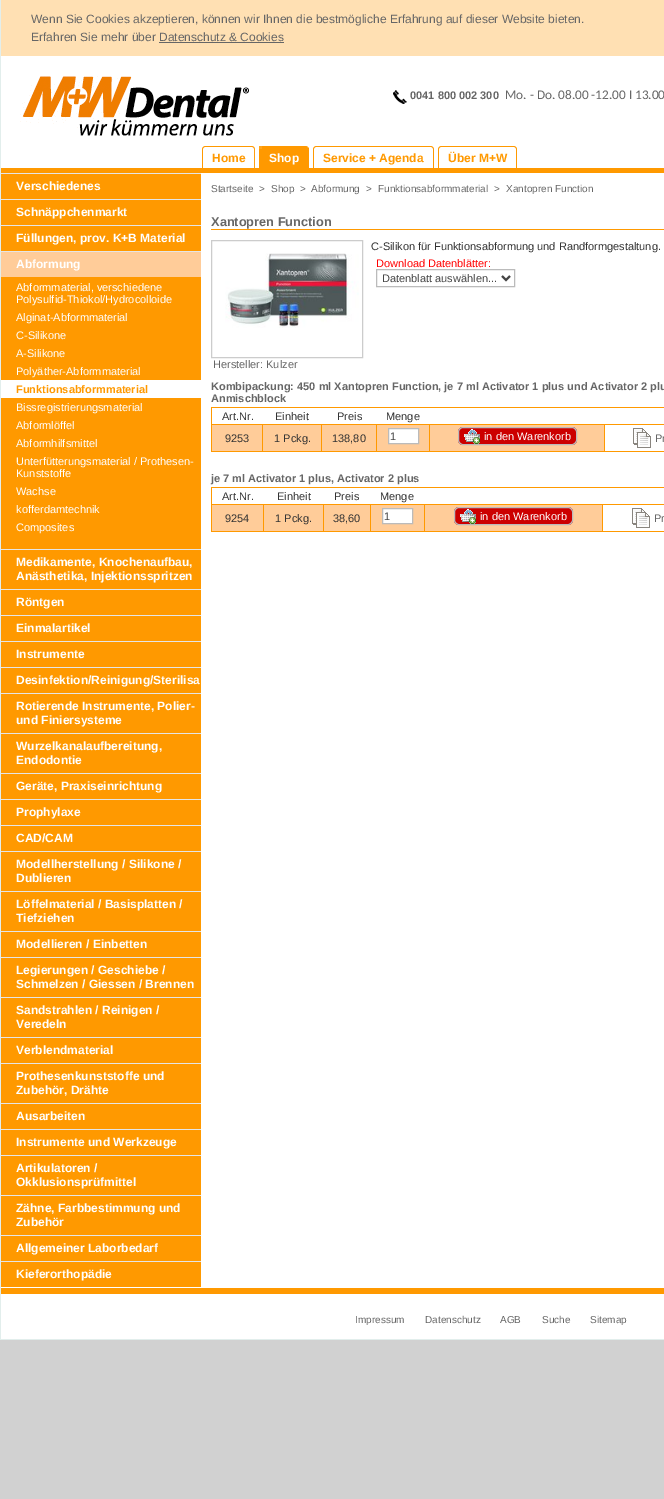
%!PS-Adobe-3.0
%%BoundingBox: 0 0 664 1499
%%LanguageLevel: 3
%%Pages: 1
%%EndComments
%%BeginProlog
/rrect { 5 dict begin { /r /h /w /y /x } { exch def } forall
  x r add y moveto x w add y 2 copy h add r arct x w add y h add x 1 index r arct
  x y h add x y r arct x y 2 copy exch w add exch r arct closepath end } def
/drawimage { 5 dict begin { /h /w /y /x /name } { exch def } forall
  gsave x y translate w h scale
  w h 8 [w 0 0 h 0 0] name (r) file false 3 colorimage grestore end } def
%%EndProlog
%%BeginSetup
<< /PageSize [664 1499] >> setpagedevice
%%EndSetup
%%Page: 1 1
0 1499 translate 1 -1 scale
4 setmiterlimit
0.82 setgray
0 0 664 1499 rectfill
1 0.6 0 setrgbcolor
1 168 663 1119 rectfill
0.886 0.933 0.925 setrgbcolor
0 0 1 1340 rectfill
1 setgray
1 56 663 112 rectfill
1 0.878 0.702 setrgbcolor
1 0 663 56 rectfill
0.4 setgray
159 42 125 1 rectfill
(images/1.raw) 20 76 229 60 drawimage
(images/2.raw) 393 90 14 14 drawimage
(images/3.raw) 205 146 50 22 drawimage
(images/4.raw) 202 146 3 22 drawimage
(images/5.raw) 259 146 50 22 drawimage
1 0.647 0.114 setrgbcolor
259 146 3 3 rectfill
(images/6.raw) 316 146 118 22 drawimage
(images/4.raw) 313 146 3 22 drawimage
(images/7.raw) 441 146 76 22 drawimage
(images/4.raw) 438 146 3 22 drawimage
1 setgray
201 173 463 1115 rectfill
1 1287 200 1 rectfill
0.898 setgray
1 173 200 1 rectfill
1 199 200 1 rectfill
1 225 200 1 rectfill
1 0.8 0.6 setrgbcolor
1 252 200 25 rectfill
0.898 setgray
1 251 200 1 rectfill
1 setgray
1 380 200 18 rectfill
0.898 setgray
1 549 200 1 rectfill
1 589 200 1 rectfill
1 615 200 1 rectfill
1 641 200 1 rectfill
1 667 200 1 rectfill
1 693 200 1 rectfill
1 733 200 1 rectfill
1 773 200 1 rectfill
1 799 200 1 rectfill
1 825 200 1 rectfill
1 851 200 1 rectfill
1 891 200 1 rectfill
1 931 200 1 rectfill
1 957 200 1 rectfill
1 997 200 1 rectfill
1 1037 200 1 rectfill
1 1063 200 1 rectfill
1 1103 200 1 rectfill
1 1129 200 1 rectfill
1 1155 200 1 rectfill
1 1195 200 1 rectfill
1 1235 200 1 rectfill
1 1261 200 1 rectfill
1 0.6 0 setrgbcolor
211 229 453 1 rectfill
0.733 setgray
376.5 269.5 138 17 rectstroke
0.271 setgray
2 setlinewidth
newpath 502 276 moveto 506 280 lineto 510 276 lineto stroke
0.8 setgray
1 setlinewidth
211.5 240.5 151 117 rectstroke
(images/8.raw) 225 253 134 75 drawimage
1 0.6 0 setrgbcolor
211 407 453 1 rectfill
211 451 453 1 rectfill
211 407 1 45 rectfill
1 0.8 0.6 setrgbcolor
212 425 392 26 rectfill
1 0.6 0 setrgbcolor
604 424 60 1 rectfill
604 424 1 28 rectfill
429 424 176 1 rectfill
429 424 1 28 rectfill
376 424 54 1 rectfill
376 424 1 28 rectfill
321 424 56 1 rectfill
321 424 1 28 rectfill
262 424 60 1 rectfill
262 424 1 28 rectfill
211 424 52 1 rectfill
1 setgray
newpath 388.5 428.5 moveto 418.5 428.5 lineto 418.5 443.5 lineto 388.5 443.5 lineto closepath gsave fill grestore
0.733 setgray
stroke
0.8 0 0 setrgbcolor
458 427 119 18 5 rrect fill
(images/9.raw) 464 429 16 15 drawimage
0.733 setgray
458.5 427.5 118 17 4.5 rrect stroke
(images/10.raw) 633 428 18 20 drawimage
1 0.6 0 setrgbcolor
211 487 453 1 rectfill
211 531 453 1 rectfill
211 487 1 45 rectfill
1 0.8 0.6 setrgbcolor
212 505 390 26 rectfill
1 0.6 0 setrgbcolor
602 504 62 1 rectfill
602 504 1 28 rectfill
424 504 179 1 rectfill
424 504 1 28 rectfill
370 504 55 1 rectfill
370 504 1 28 rectfill
323 504 48 1 rectfill
323 504 1 28 rectfill
263 504 61 1 rectfill
263 504 1 28 rectfill
211 504 53 1 rectfill
1 setgray
newpath 382.5 508.5 moveto 412.5 508.5 lineto 412.5 523.5 lineto 382.5 523.5 lineto closepath gsave fill grestore
0.733 setgray
stroke
0.8 0 0 setrgbcolor
454 507 119 18 5 rrect fill
(images/9.raw) 460 509 16 15 drawimage
0.733 setgray
454.5 507.5 118 17 4.5 rrect stroke
(images/10.raw) 632 508 18 20 drawimage
1 setgray
1 1294 663 45 rectfill
1 0.6 0 setrgbcolor
1 1288 663 6 rectfill
0.886 0.933 0.925 setrgbcolor
1 1339 663 1 rectfill
/LiberationSans-Regular [12 0 0 -12 0 0] selectfont
0.4 setgray
31 23 moveto (Wenn Sie Cookies akzeptieren, können wir Ihnen die bestmögliche Erfahrung auf dieser Website bieten.) show
31 41 moveto (Erfahren Sie mehr über Datenschutz & Cookies) show
/LiberationSans-Bold [11 0 0 -11 0 0] selectfont
410 99 moveto (0041 800 002 300) show
/Carlito-Regular [13.25 0 0 -13.25 0 0] selectfont
505 99 moveto (Mo. - Do. 08.00 -12.00 I 13.00) show
/LiberationSans-Bold [12 0 0 -12 0 0] selectfont
1 0.6 0 setrgbcolor
212 162 moveto (Home) show
1 setgray
269 162 moveto (Shop) show
1 0.6 0 setrgbcolor
323 162 moveto (Service + Agenda) show
448 162 moveto (Über M+W) show
1 setgray
16 190 moveto (Verschiedenes) show
16 216 moveto (Schnäppchenmarkt) show
16 242 moveto (Füllungen, prov. K+B Material) show
16 268 moveto (Abformung) show
/LiberationSans-Regular [11 0 0 -11 0 0] selectfont
16 291 moveto (Abformmaterial, verschiedene) show
16 303 moveto (Polysulfid-Thiokol/Hydrocolloide) show
16 321 moveto (Alginat-Abformmaterial) show
16 339 moveto (C-Silikone) show
16 357 moveto (A-Silikone) show
16 375 moveto (Polyäther-Abformmaterial) show
/LiberationSans-Bold [11 0 0 -11 0 0] selectfont
1 0.6 0 setrgbcolor
16 393 moveto (Funktionsabformmaterial) show
/LiberationSans-Regular [11 0 0 -11 0 0] selectfont
1 setgray
16 411 moveto (Bissregistrierungsmaterial) show
16 429 moveto (Abformlöffel) show
16 447 moveto (Abformhilfsmittel) show
16 465 moveto (Unterfütterungsmaterial / Prothesen-) show
16 477 moveto (Kunststoffe) show
16 495 moveto (Wachse) show
16 513 moveto (kofferdamtechnik) show
16 531 moveto (Composites) show
/LiberationSans-Bold [12 0 0 -12 0 0] selectfont
16 566 moveto (Medikamente, Knochenaufbau,) show
16 580 moveto (Anästhetika, Injektionsspritzen) show
16 606 moveto (Röntgen) show
16 632 moveto (Einmalartikel) show
16 658 moveto (Instrumente) show
16 684 moveto (Desinfektion/Reinigung/Sterilisa) show
16 710 moveto (Rotierende Instrumente, Polier-) show
16 724 moveto (und Finiersysteme) show
16 750 moveto (Wurzelkanalaufbereitung,) show
16 764 moveto (Endodontie) show
16 790 moveto (Geräte, Praxiseinrichtung) show
16 816 moveto (Prophylaxe) show
16 842 moveto (CAD/CAM) show
16 868 moveto (Modellherstellung / Silikone /) show
16 882 moveto (Dublieren) show
16 908 moveto (Löffelmaterial / Basisplatten /) show
16 922 moveto (Tiefziehen) show
16 948 moveto (Modellieren / Einbetten) show
16 974 moveto (Legierungen / Geschiebe /) show
16 988 moveto (Schmelzen / Giessen / Brennen) show
16 1014 moveto (Sandstrahlen / Reinigen /) show
16 1028 moveto (Veredeln) show
16 1054 moveto (Verblendmaterial) show
16 1080 moveto (Prothesenkunststoffe und) show
16 1094 moveto (Zubehör, Drähte) show
16 1120 moveto (Ausarbeiten) show
16 1146 moveto (Instrumente und Werkzeuge) show
16 1172 moveto (Artikulatoren /) show
16 1186 moveto (Okklusionsprüfmittel) show
16 1212 moveto (Zähne, Farbbestimmung und) show
16 1226 moveto (Zubehör) show
16 1252 moveto (Allgemeiner Laborbedarf) show
16 1278 moveto (Kieferorthopädie) show
/LiberationSans-Regular [10 0 0 -10 0 0] selectfont
0.4 setgray
211 192 moveto (Startseite) show
259 192 moveto (>) show
271 192 moveto (Shop) show
300 192 moveto (>) show
311 192 moveto (Abformung) show
366 192 moveto (>) show
378 192 moveto (Funktionsabformmaterial) show
494 192 moveto (>) show
506 192 moveto (Xantopren Function) show
/LiberationSans-Bold [12.75 0 0 -12.75 0 0] selectfont
211 226 moveto (Xantopren Function) show
/LiberationSans-Regular [11 0 0 -11 0 0] selectfont
0.2 setgray
371 250 moveto (C-Silikon für Funktionsabformung und Randformgestaltung.) show
1 0 0 setrgbcolor
376 267 moveto (Download Datenblätter:) show
0.271 setgray
382 282 moveto (Datenblatt auswählen...) show
0.4 setgray
213 368 moveto (Hersteller: Kulzer) show
/LiberationSans-Bold [11 0 0 -11 0 0] selectfont
211 390 moveto (Kombipackung: 450 ml Xantopren Function, je 7 ml Activator 1 plus und Activator 2 plu) show
211 402 moveto (Anmischblock) show
/LiberationSans-Regular [11 0 0 -11 0 0] selectfont
0.2 setgray
222 420 moveto (Art.Nr.) show
275 420 moveto (Einheit) show
337 420 moveto (Preis) show
386 420 moveto (Menge) show
225 442 moveto (9253) show
274 442 moveto (1 Pckg.) show
332 442 moveto (138,80) show
0.271 setgray
390 440 moveto (1) show
1 setgray
484 440 moveto (in den Warenkorb) show
0.4 setgray
655 442 moveto (Pr) show
/LiberationSans-Bold [11 0 0 -11 0 0] selectfont
211 482 moveto (je 7 ml Activator 1 plus, Activator 2 plus) show
/LiberationSans-Regular [11 0 0 -11 0 0] selectfont
0.2 setgray
222 500 moveto (Art.Nr.) show
277 500 moveto (Einheit) show
334 500 moveto (Preis) show
380 500 moveto (Menge) show
225 522 moveto (9254) show
275 522 moveto (1 Pckg.) show
333 522 moveto (38,60) show
0.271 setgray
384 520 moveto (1) show
1 setgray
480 520 moveto (in den Warenkorb) show
0.4 setgray
654 522 moveto (Pr) show
/LiberationSans-Regular [10 0 0 -10 0 0] selectfont
355 1323 moveto (Impressum) show
425 1323 moveto (Datenschutz) show
500 1323 moveto (AGB) show
542 1323 moveto (Suche) show
590 1323 moveto (Sitemap) show
showpage
%%EOF
